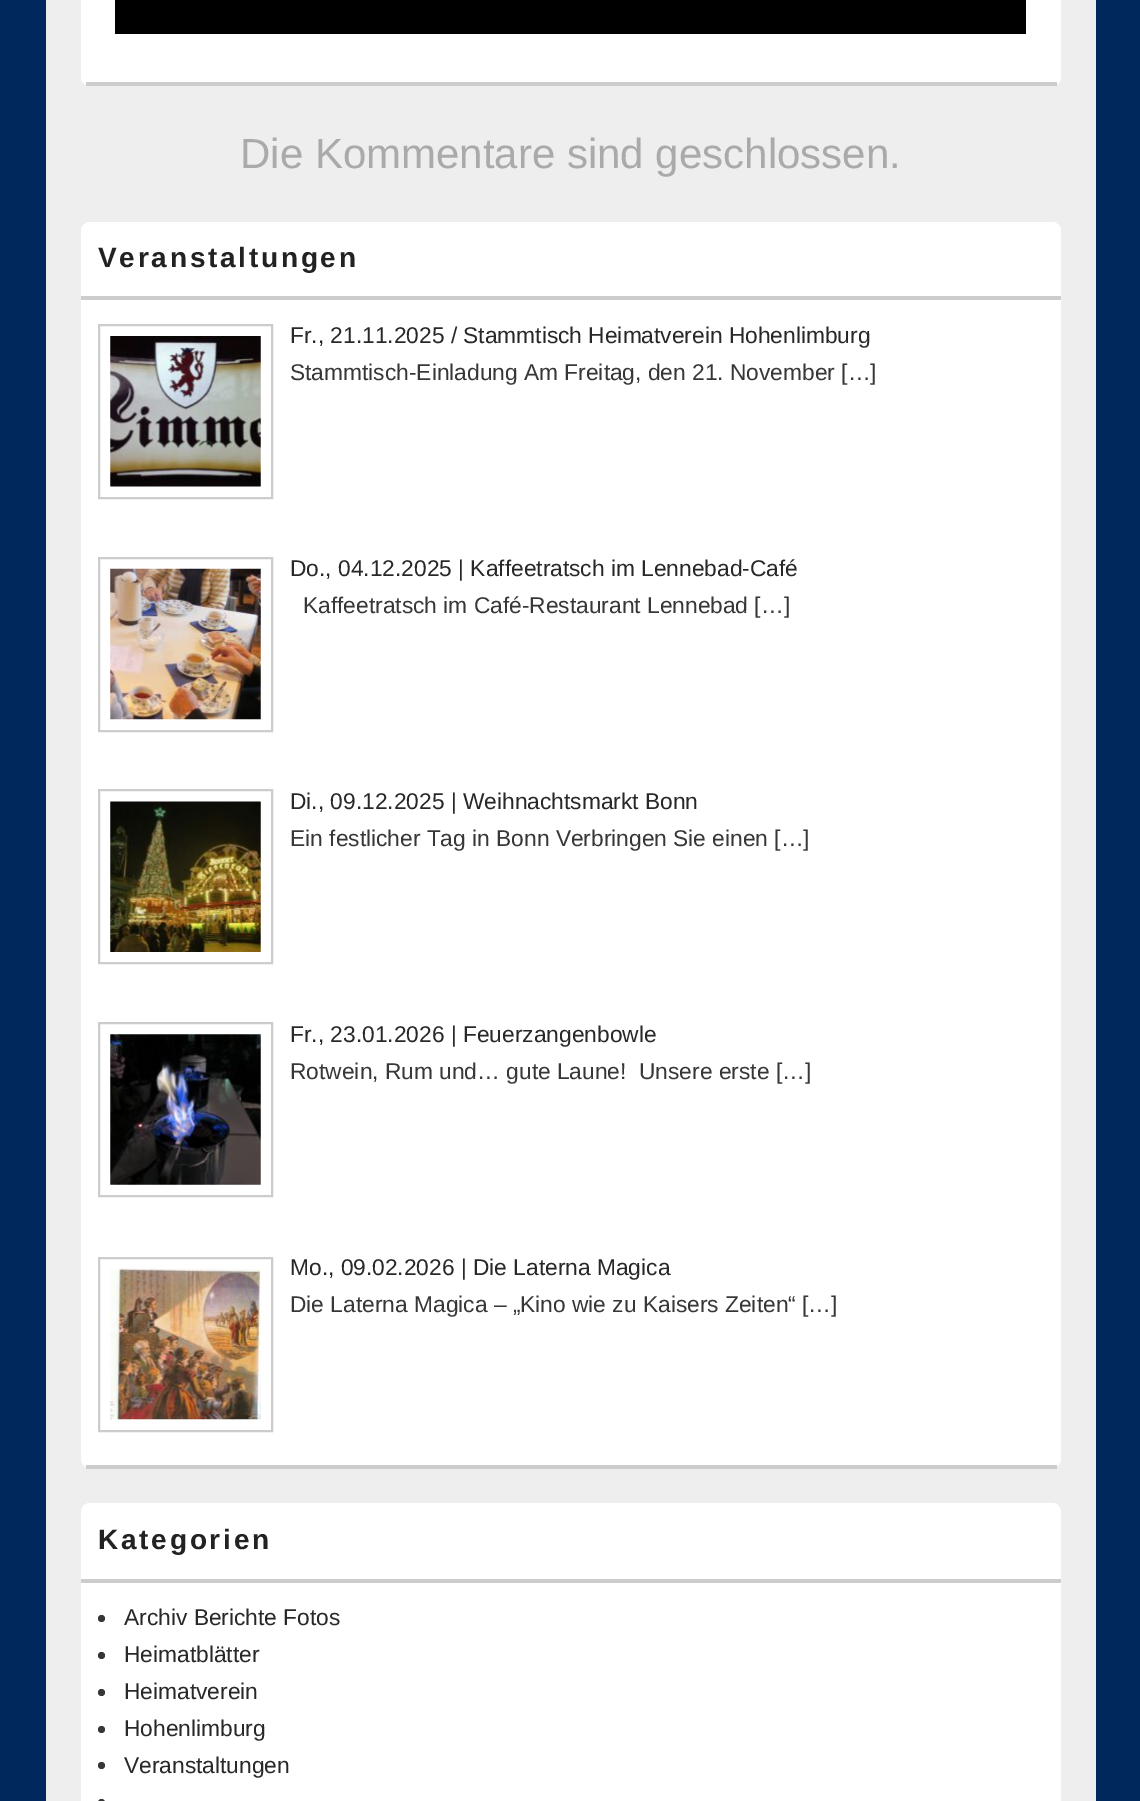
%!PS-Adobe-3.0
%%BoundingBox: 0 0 1140 1801
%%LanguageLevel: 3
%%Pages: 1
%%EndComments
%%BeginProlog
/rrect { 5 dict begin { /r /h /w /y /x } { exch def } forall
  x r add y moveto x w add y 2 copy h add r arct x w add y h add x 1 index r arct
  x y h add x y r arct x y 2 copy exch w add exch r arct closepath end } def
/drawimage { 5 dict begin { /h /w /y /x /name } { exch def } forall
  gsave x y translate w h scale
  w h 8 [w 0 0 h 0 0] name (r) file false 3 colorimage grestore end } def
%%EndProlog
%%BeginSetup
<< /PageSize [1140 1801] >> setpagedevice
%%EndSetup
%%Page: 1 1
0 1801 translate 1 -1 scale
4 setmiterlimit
0 0.157 0.361 setrgbcolor
0 0 1140 1801 rectfill
0.933 setgray
46 0 1050 1801 rectfill
1 setgray
81 -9 980 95 9 rrect fill
0.8 setgray
86 82 971 4 rectfill
0 setgray
115 0 911 34 rectfill
1 setgray
81 222 980 1246 9 rrect fill
0.8 setgray
86 1465 971 4 rectfill
81 296 980 4 rectfill
2 setlinewidth
99 325 173 173 rectstroke
(images/1.raw) 110 336 151 151 drawimage
99 558 173 173 rectstroke
(images/2.raw) 110 568 151 152 drawimage
99 790 173 173 rectstroke
(images/3.raw) 110 801 151 151 drawimage
99 1023 173 173 rectstroke
(images/4.raw) 110 1034 151 151 drawimage
99 1258 173 173 rectstroke
(images/5.raw) 110 1268 151 152 drawimage
1 setgray
81 1503 980 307 9 rrect fill
0.8 setgray
81 1579 980 4 rectfill
0.216 setgray
newpath 101.5 1618.5 3.5 0 360 arc closepath fill
newpath 101.5 1655.5 3.5 0 360 arc closepath fill
newpath 101.5 1692.5 3.5 0 360 arc closepath fill
newpath 101.5 1729.5 3.5 0 360 arc closepath fill
newpath 101.5 1765.5 3.5 0 360 arc closepath fill
98 1799 7 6 3.5 rrect fill
/LiberationSans-Regular [42 0 0 -42 0 0] selectfont
0.667 setgray
240 168 moveto (Die Kommentare sind geschlossen.) show
/LiberationSans-Bold [28 0 0 -28 0 0] selectfont
0.133 setgray
98 267 moveto 2.75 0 (Veranstaltungen) ashow
/LiberationSans-Regular [22.75 0 0 -22.75 0 0] selectfont
0.157 setgray
290 343 moveto (Fr., 21.11.2025 / Stammtisch Heimatverein Hohenlimburg) show
0.216 setgray
290 380 moveto (Stammtisch-Einladung Am Freitag, den 21. November […]) show
0.157 setgray
290 576 moveto (Do., 04.12.2025 | Kaffeetratsch im Lennebad-Café) show
0.216 setgray
303 613 moveto (Kaffeetratsch im Café-Restaurant Lennebad […]) show
0.157 setgray
290 809 moveto (Di., 09.12.2025 | Weihnachtsmarkt Bonn) show
0.216 setgray
290 846 moveto (Ein festlicher Tag in Bonn Verbringen Sie einen […]) show
0.157 setgray
290 1042 moveto (Fr., 23.01.2026 | Feuerzangenbowle) show
0.216 setgray
290 1079 moveto (Rotwein, Rum und… gute Laune!  Unsere erste […]) show
0.157 setgray
290 1275 moveto (Mo., 09.02.2026 | Die Laterna Magica) show
0.216 setgray
290 1312 moveto (Die Laterna Magica – „Kino wie zu Kaisers Zeiten“ […]) show
/LiberationSans-Bold [28 0 0 -28 0 0] selectfont
0.133 setgray
98 1549 moveto 2.75 0 (Kategorien) ashow
/LiberationSans-Regular [22.75 0 0 -22.75 0 0] selectfont
0.157 setgray
124 1625 moveto (Archiv Berichte Fotos) show
124 1662 moveto (Heimatblätter) show
124 1699 moveto (Heimatverein) show
124 1736 moveto (Hohenlimburg) show
124 1773 moveto (Veranstaltungen) show
showpage
%%EOF
